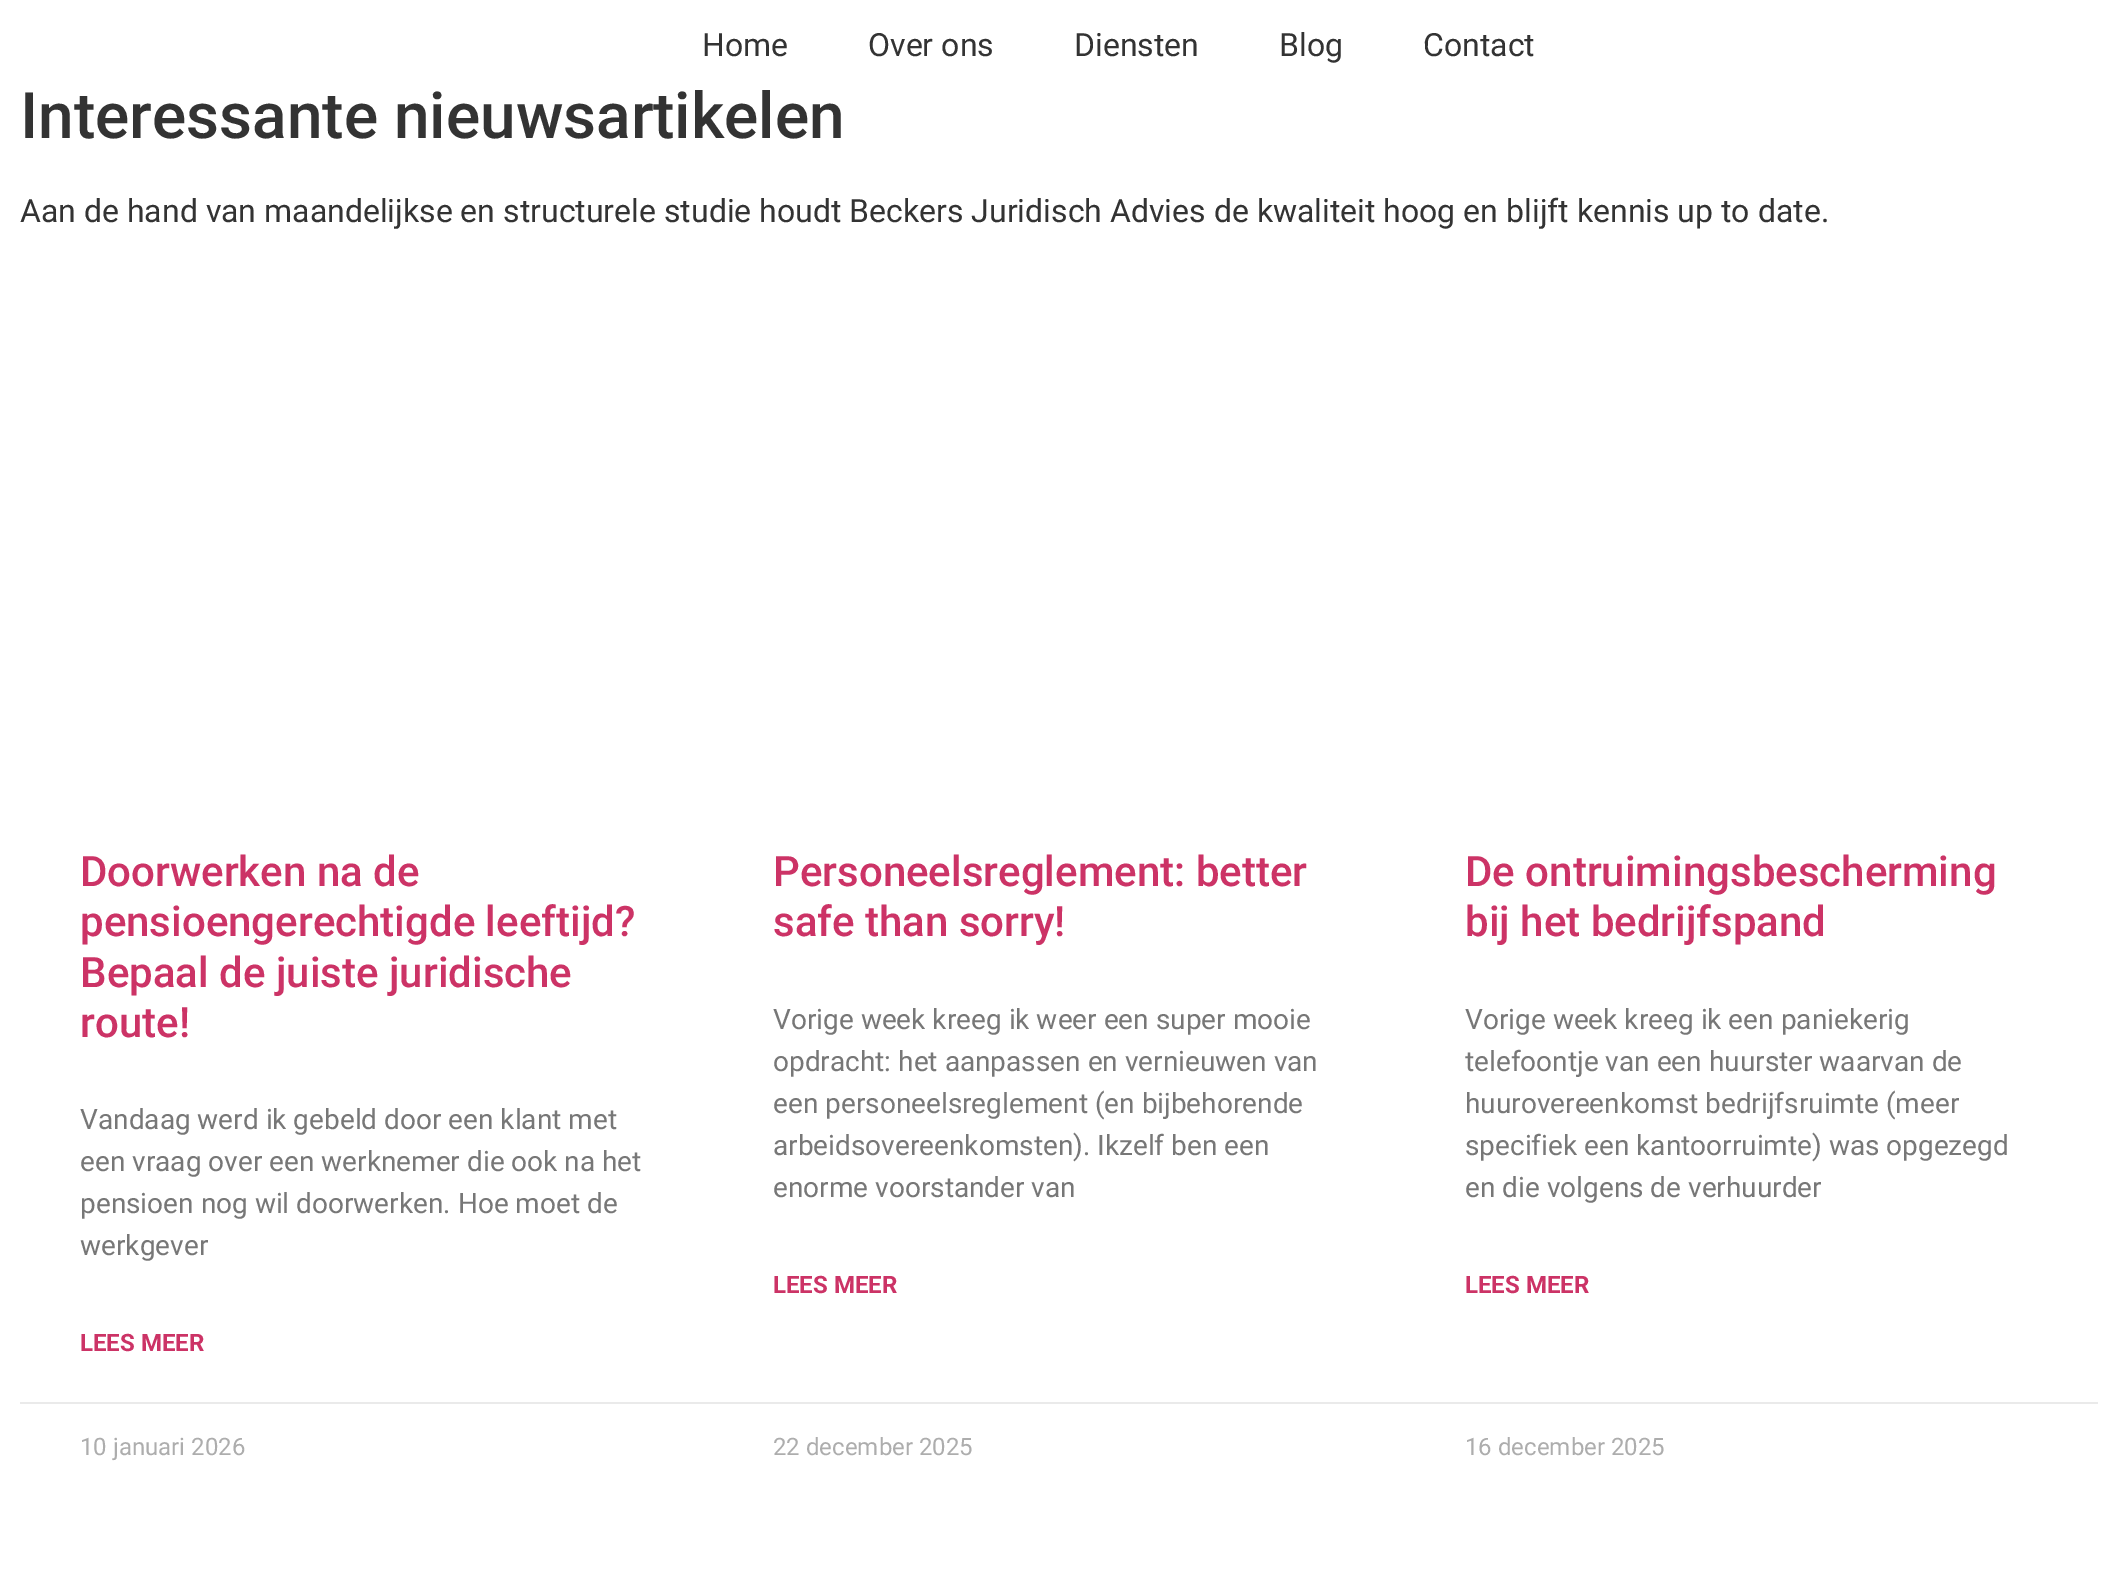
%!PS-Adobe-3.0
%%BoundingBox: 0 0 2118 1575
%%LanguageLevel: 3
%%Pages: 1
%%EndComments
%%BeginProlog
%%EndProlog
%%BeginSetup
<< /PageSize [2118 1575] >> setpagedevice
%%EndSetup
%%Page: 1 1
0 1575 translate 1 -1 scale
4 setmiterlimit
1 setgray
0 0 2118 1575 rectfill
0.918 setgray
20 1402 2078 2 rectfill
/Roboto-Regular [32 0 0 -32 0 0] selectfont
0.2 setgray
702 56 moveto (Home) show
868 56 moveto (Over ons) show
1074 56 moveto (Diensten) show
1279 56 moveto (Blog) show
1423 56 moveto (Contact) show
/Roboto-Medium [64 0 0 -64 0 0] selectfont
20 138 moveto (Interessante nieuwsartikelen) show
/Roboto-Regular [32 0 0 -32 0 0] selectfont
20 222 moveto (Aan de hand van maandelijkse en structurele studie houdt Beckers Juridisch Advies de kwaliteit hoog en blijft kennis up to date.) show
/Roboto-Medium [42 0 0 -42 0 0] selectfont
0.8 0.2 0.4 setrgbcolor
80 886 moveto (Doorwerken na de) show
80 936 moveto (pensioengerechtigde leeftijd?) show
80 987 moveto (Bepaal de juiste juridische) show
80 1037 moveto (route!) show
/Roboto-Regular [28 0 0 -28 0 0] selectfont
0.467 setgray
80 1129 moveto (Vandaag werd ik gebeld door een klant met) show
80 1171 moveto (een vraag over een werknemer die ook na het) show
80 1213 moveto (pensioen nog wil doorwerken. Hoe moet de) show
80 1255 moveto (werkgever) show
/Roboto-Bold [24 0 0 -24 0 0] selectfont
0.8 0.2 0.4 setrgbcolor
80 1351 moveto (LEES MEER) show
/Roboto-Regular [24 0 0 -24 0 0] selectfont
0.678 setgray
80 1455 moveto (10 januari 2026) show
/Roboto-Medium [42 0 0 -42 0 0] selectfont
0.8 0.2 0.4 setrgbcolor
773 886 moveto (Personeelsreglement: better) show
773 936 moveto (safe than sorry!) show
/Roboto-Regular [28 0 0 -28 0 0] selectfont
0.467 setgray
773 1029 moveto (Vorige week kreeg ik weer een super mooie) show
773 1071 moveto (opdracht: het aanpassen en vernieuwen van) show
773 1113 moveto (een personeelsreglement \(en bijbehorende) show
773 1155 moveto (arbeidsovereenkomsten\). Ikzelf ben een) show
773 1197 moveto (enorme voorstander van) show
/Roboto-Bold [24 0 0 -24 0 0] selectfont
0.8 0.2 0.4 setrgbcolor
773 1293 moveto (LEES MEER) show
/Roboto-Regular [24 0 0 -24 0 0] selectfont
0.678 setgray
773 1455 moveto (22 december 2025) show
/Roboto-Medium [42 0 0 -42 0 0] selectfont
0.8 0.2 0.4 setrgbcolor
1465 886 moveto (De ontruimingsbescherming) show
1465 936 moveto (bij het bedrijfspand) show
/Roboto-Regular [28 0 0 -28 0 0] selectfont
0.467 setgray
1465 1029 moveto (Vorige week kreeg ik een paniekerig) show
1465 1071 moveto (telefoontje van een huurster waarvan de) show
1465 1113 moveto (huurovereenkomst bedrijfsruimte \(meer) show
1465 1155 moveto (specifiek een kantoorruimte\) was opgezegd) show
1465 1197 moveto (en die volgens de verhuurder) show
/Roboto-Bold [24 0 0 -24 0 0] selectfont
0.8 0.2 0.4 setrgbcolor
1465 1293 moveto (LEES MEER) show
/Roboto-Regular [24 0 0 -24 0 0] selectfont
0.678 setgray
1465 1455 moveto (16 december 2025) show
showpage
%%EOF
